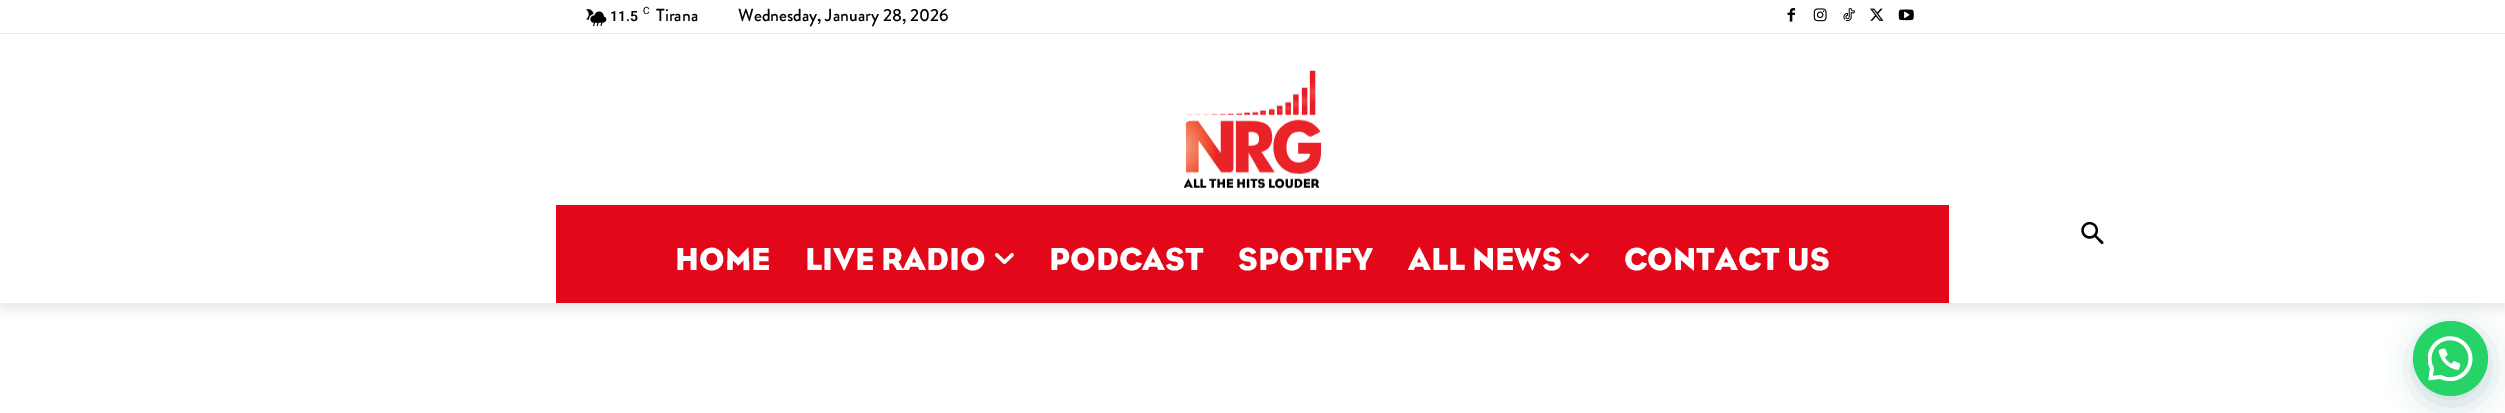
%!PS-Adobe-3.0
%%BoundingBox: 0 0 2505 413
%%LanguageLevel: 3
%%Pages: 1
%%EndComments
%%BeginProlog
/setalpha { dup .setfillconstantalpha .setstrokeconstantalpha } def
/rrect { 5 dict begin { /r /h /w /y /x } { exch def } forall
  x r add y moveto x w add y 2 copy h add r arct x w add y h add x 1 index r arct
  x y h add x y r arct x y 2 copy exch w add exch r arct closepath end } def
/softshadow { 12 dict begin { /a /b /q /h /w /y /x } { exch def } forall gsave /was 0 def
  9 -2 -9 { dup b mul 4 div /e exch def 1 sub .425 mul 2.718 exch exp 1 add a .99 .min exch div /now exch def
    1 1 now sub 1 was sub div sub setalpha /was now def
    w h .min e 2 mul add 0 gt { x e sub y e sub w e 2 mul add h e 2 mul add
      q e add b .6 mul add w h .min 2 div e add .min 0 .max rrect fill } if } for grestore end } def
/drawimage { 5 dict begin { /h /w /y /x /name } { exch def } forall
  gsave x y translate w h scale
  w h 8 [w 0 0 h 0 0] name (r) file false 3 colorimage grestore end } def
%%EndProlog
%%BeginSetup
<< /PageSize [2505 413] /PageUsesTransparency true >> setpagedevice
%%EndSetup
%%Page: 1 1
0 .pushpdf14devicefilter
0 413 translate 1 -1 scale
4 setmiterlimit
1 setgray
0 0 2505 413 rectfill
(images/1.raw) 586 9 21 18 drawimage
(images/2.raw) 1787 8 8 14 drawimage
(images/3.raw) 1813 8 14 14 drawimage
(images/4.raw) 1843 8 12 14 drawimage
(images/5.raw) 1870 8 14 13 drawimage
(images/6.raw) 1898 9 16 12 drawimage
0.922 setgray
0 33 2505 1 rectfill
(images/7.raw) 1183 70 139 119 drawimage
gsave
newpath 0 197 moveto 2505 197 lineto 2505 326 lineto 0 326 lineto closepath 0 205 moveto 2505 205 lineto 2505 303 lineto 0 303 lineto closepath eoclip newpath
0 setgray
0 213 2505 97 0 5 0.08 softshadow
grestore
(images/8.raw) 2081 221 23 24 drawimage
0.886 0.031 0.098 setrgbcolor
556 205 1393 98 rectfill
(images/9.raw) 995 253 19 12 drawimage
(images/9.raw) 1570 253 19 12 drawimage
0.027 0.369 0.329 setrgbcolor
2414 329 75 75 37.5 15 0.24 softshadow
0.145 0.827 0.4 setrgbcolor
newpath 2450.5 358.5 37.5 0 360 arc closepath fill
(images/10.raw) 2428 336 45 45 drawimage
/Roboto-SemiBold [14 0 0 -14 0 0] selectfont
0 setgray
610 21 moveto (11.5) show
/Roboto-Regular [10 0 0 -10 0 0] selectfont
643 14 moveto (C) show
/BrandonGrotesque-Medium [17.5 0 0 -17.5 0 0] selectfont
656 21 moveto (Tirana) show
738 21 moveto (Wednesday, January 28, 2026) show
/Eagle-Regular [32.5 0 0 -32.5 0 0] selectfont
1 setgray
675 270 moveto (HOME) show
805 270 moveto (LIVE RADIO) show
1049 270 moveto (PODCAST) show
1238 270 moveto (SPOTIFY) show
1408 270 moveto (ALL NEWS) show
1624 270 moveto (CONTACT US) show
.poppdf14devicefilter showpage
%%EOF
